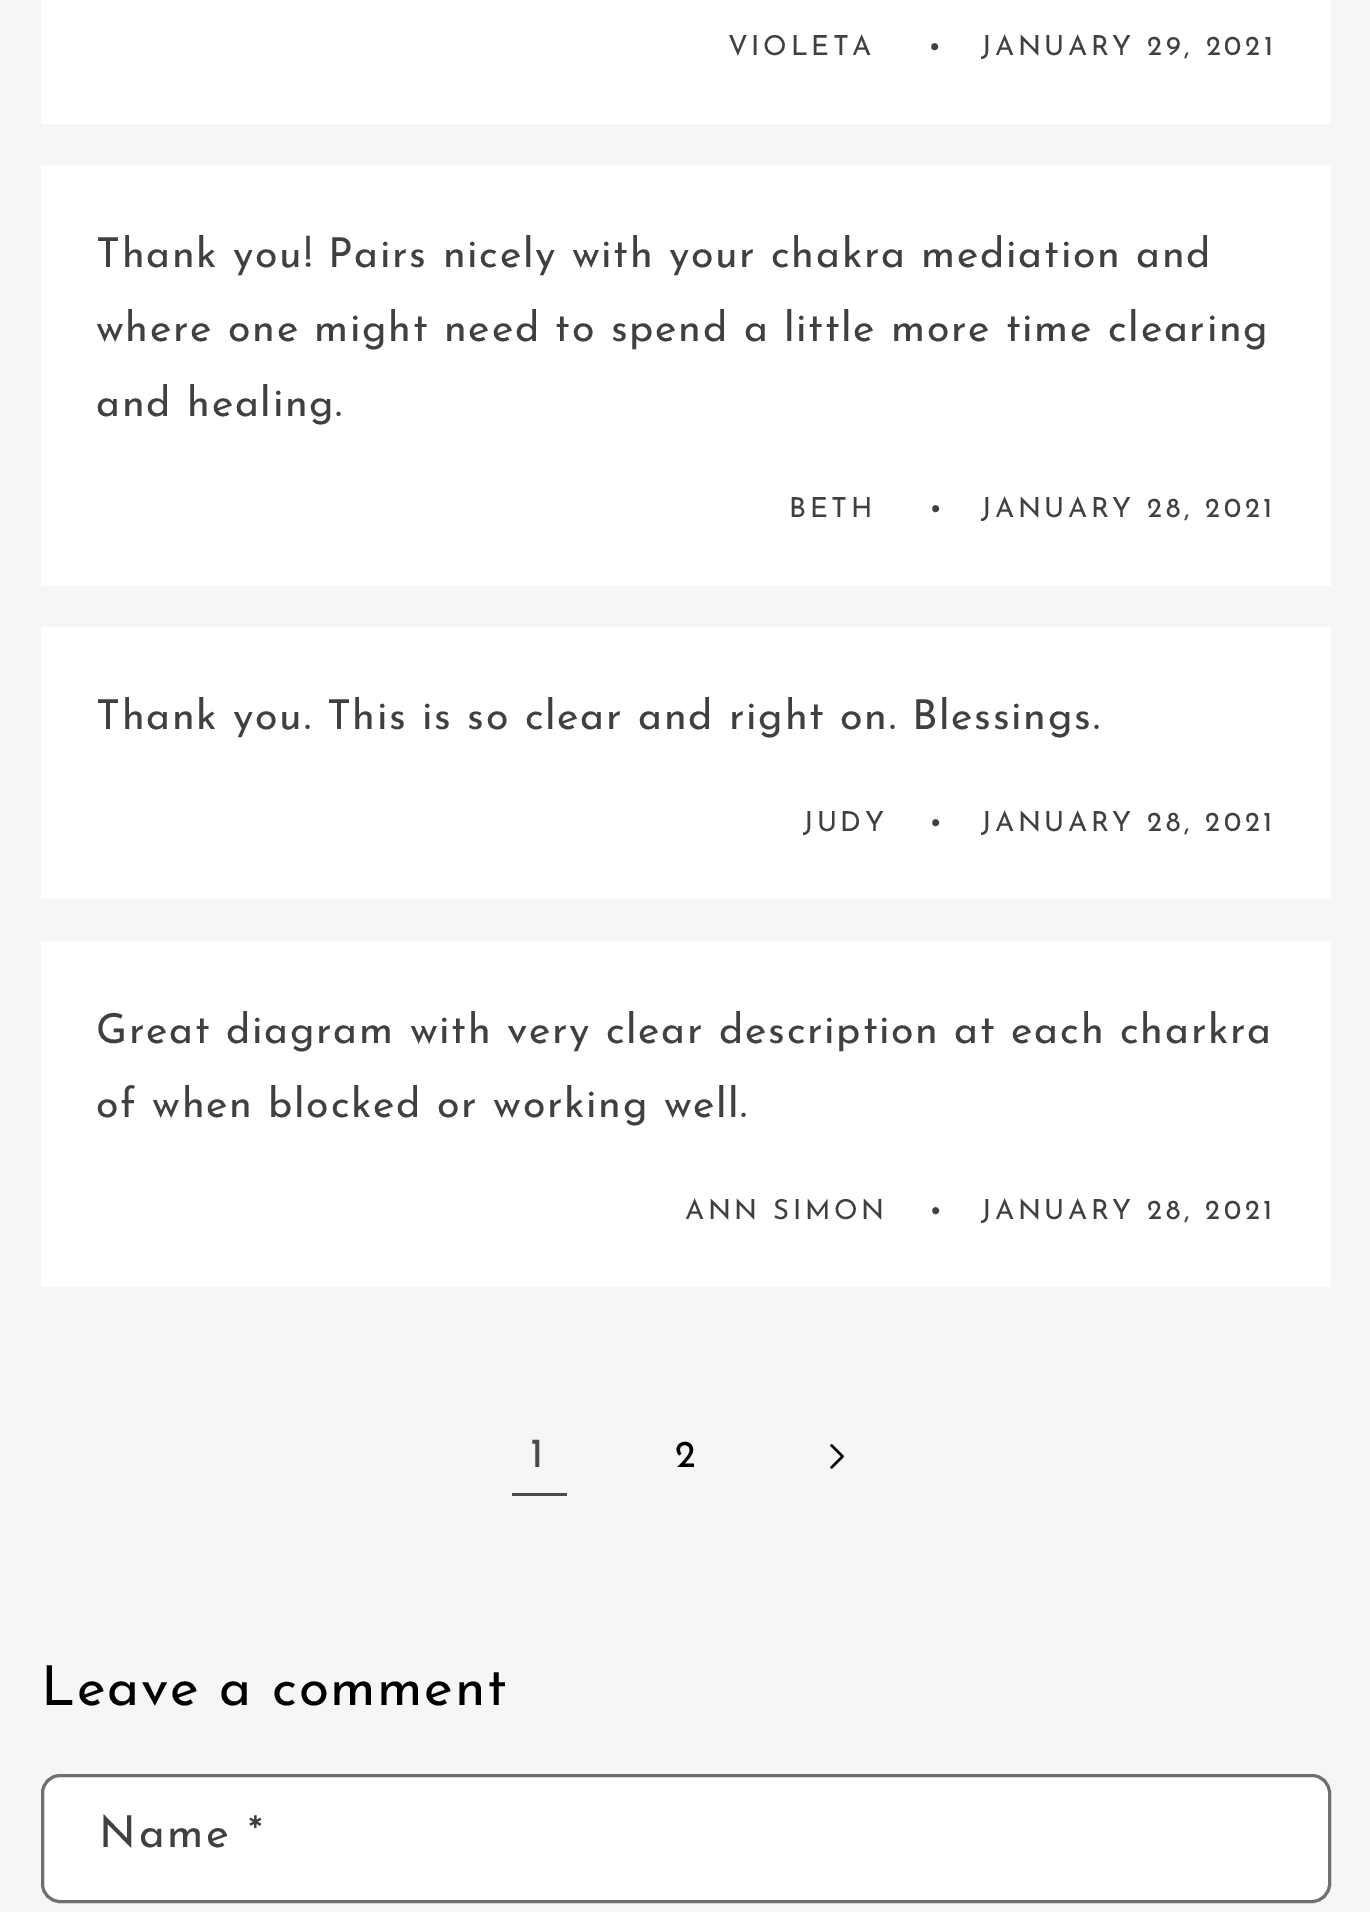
%!PS-Adobe-3.0
%%BoundingBox: 0 0 1370 1912
%%LanguageLevel: 3
%%Pages: 1
%%EndComments
%%BeginProlog
/rrect { 5 dict begin { /r /h /w /y /x } { exch def } forall
  x r add y moveto x w add y 2 copy h add r arct x w add y h add x 1 index r arct
  x y h add x y r arct x y 2 copy exch w add exch r arct closepath end } def
/drawimage { 5 dict begin { /h /w /y /x /name } { exch def } forall
  gsave x y translate w h scale
  w h 8 [w 0 0 h 0 0] name (r) file false 3 colorimage grestore end } def
%%EndProlog
%%BeginSetup
<< /PageSize [1370 1912] >> setpagedevice
%%EndSetup
%%Page: 1 1
0 1912 translate 1 -1 scale
4 setmiterlimit
0.965 setgray
0 0 1370 1912 rectfill
1 setgray
41 0 1290 124 rectfill
41 165 1290 421 rectfill
41 627 1290 272 rectfill
41 941 1290 346 rectfill
0.29 setgray
512 1493 55 3 rectfill
(images/1.raw) 830 1444 14 25 drawimage
1 setgray
44 1777 1284 123 17 rrect fill
0.435 setgray
3 setlinewidth
42.5 1775.5 1287 126 17.5 rrect stroke
/JosefinSans-Regular [27.5 0 0 -27.5 0 0] selectfont
0.251 setgray
728 55 moveto 3.6 0 (VIOLETA) ashow
928 55 moveto 3.6 0 (•) ashow
981 55 moveto 3.6 0 (JANUARY 29, 2021) ashow
/JosefinSans-Regular [41.25 0 0 -41.25 0 0] selectfont
96 267 moveto 1.65 0 (Thank you! Pairs nicely with your chakra mediation and) ashow
96 341 moveto 1.65 0 (where one might need to spend a little more time clearing) ashow
96 416 moveto 1.65 0 (and healing.) ashow
/JosefinSans-Regular [27.5 0 0 -27.5 0 0] selectfont
789 517 moveto 3.6 0 (BETH) ashow
929 517 moveto 3.6 0 (•) ashow
981 517 moveto 3.6 0 (JANUARY 28, 2021) ashow
/JosefinSans-Regular [41.25 0 0 -41.25 0 0] selectfont
96 729 moveto 1.65 0 (Thank you. This is so clear and right on. Blessings.) ashow
/JosefinSans-Regular [27.5 0 0 -27.5 0 0] selectfont
803 831 moveto 3.6 0 (JUDY) ashow
929 831 moveto 3.6 0 (•) ashow
981 831 moveto 3.6 0 (JANUARY 28, 2021) ashow
/JosefinSans-Regular [41.25 0 0 -41.25 0 0] selectfont
96 1043 moveto 1.65 0 (Great diagram with very clear description at each charkra) ashow
96 1117 moveto 1.65 0 (of when blocked or working well.) ashow
/JosefinSans-Regular [27.5 0 0 -27.5 0 0] selectfont
685 1219 moveto 3.6 0 (ANN SIMON) ashow
929 1219 moveto 3.6 0 (•) ashow
981 1219 moveto 3.6 0 (JANUARY 28, 2021) ashow
/JosefinSans-Regular [41.25 0 0 -41.25 0 0] selectfont
0.29 setgray
530 1467 moveto 1.65 0 (1) ashow
/JosefinSans-Regular [38 0 0 -38 0 0] selectfont
0 setgray
675 1467 moveto 1.65 0 (2) ashow
/JosefinSans-Regular [55 0 0 -55 0 0] selectfont
41 1705 moveto 1.65 0 (Leave a comment) ashow
/JosefinSans-Regular [44 0 0 -44 0 0] selectfont
0.251 setgray
99 1847 moveto 2.75 0 (Name *) ashow
showpage
%%EOF
